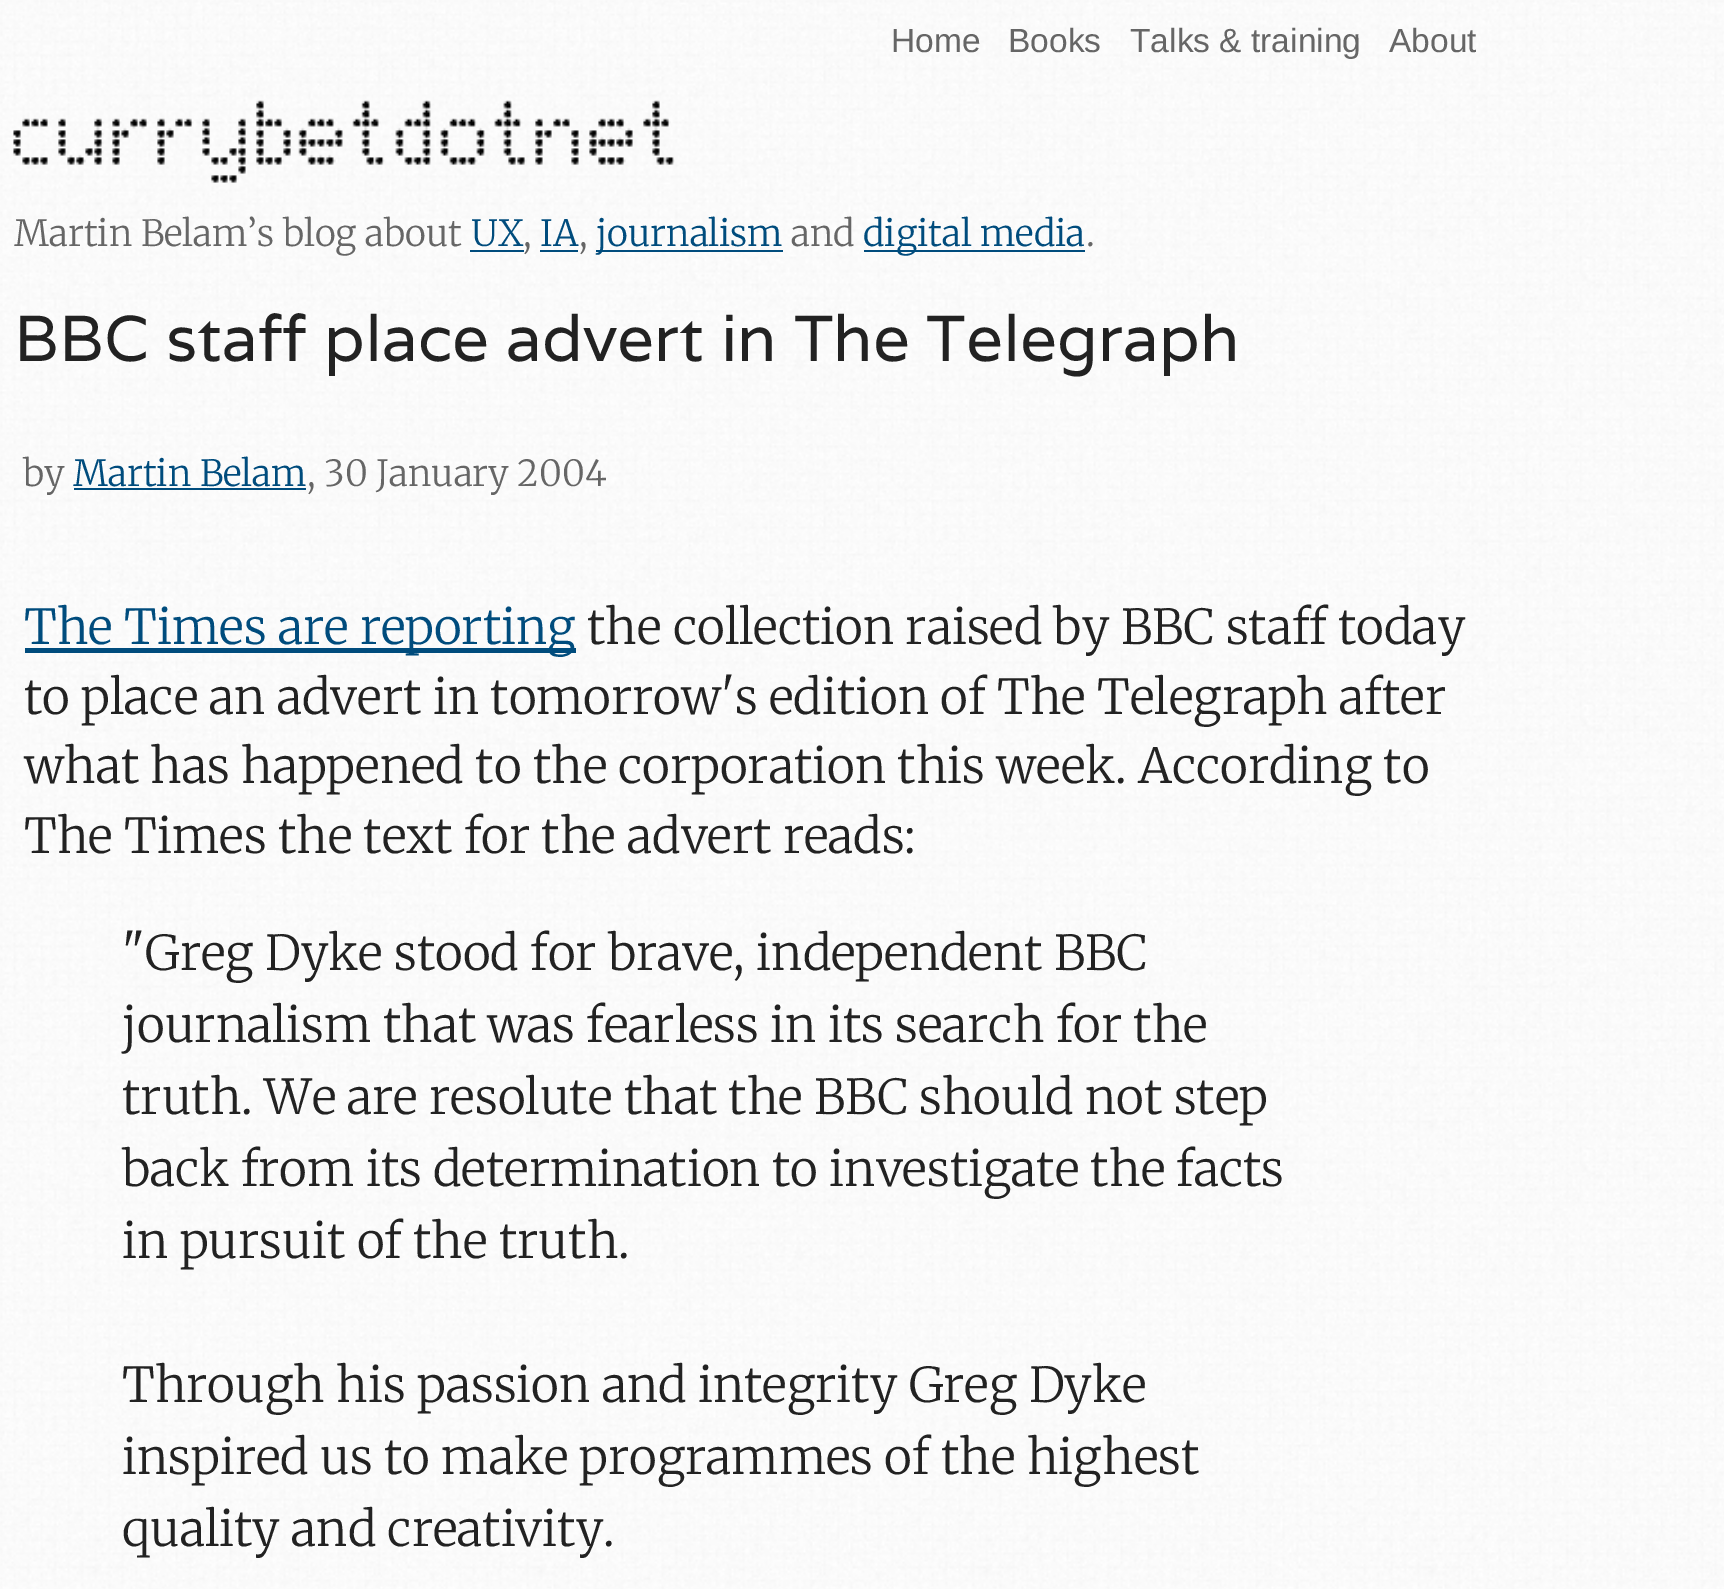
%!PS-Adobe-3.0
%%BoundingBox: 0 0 1724 1589
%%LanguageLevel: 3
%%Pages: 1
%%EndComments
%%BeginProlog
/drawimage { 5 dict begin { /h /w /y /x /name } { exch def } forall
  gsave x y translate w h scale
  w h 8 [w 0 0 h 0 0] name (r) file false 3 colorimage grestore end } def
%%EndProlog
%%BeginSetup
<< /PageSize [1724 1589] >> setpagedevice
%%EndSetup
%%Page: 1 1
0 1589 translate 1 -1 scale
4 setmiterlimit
1 setgray
0 0 1724 1589 rectfill
(images/1.raw) 0 0 1724 1589 drawimage
(images/2.raw) 13 100 662 83 drawimage
0 0.298 0.49 setrgbcolor
470 250 54 2 rectfill
540 250 38 2 rectfill
596 250 187 2 rectfill
864 250 221 2 rectfill
74 488 232 2 rectfill
25 648 551 5 rectfill
/LiberationSans-Regular [33.5 0 0 -33.5 0 0] selectfont
0.4 setgray
891 52 moveto (Home) show
1008 52 moveto (Books) show
1130 52 moveto (Talks & training) show
1389 52 moveto (About) show
/Merriweather-Light [36 0 0 -36 0 0] selectfont
14 246 moveto (Martin Belam’s blog about) show
0 0.298 0.49 setrgbcolor
471 246 moveto (UX) show
540 246 moveto (IA) show
596 246 moveto (journalism) show
0.4 setgray
791 246 moveto (and) show
0 0.298 0.49 setrgbcolor
863 246 moveto (digital media) show
0.4 setgray
523 246 moveto (,) show
579 246 moveto (,) show
1086 246 moveto (.) show
/Varela-Regular [64.75 0 0 -64.75 0 0] selectfont
0.133 setgray
14 361 moveto (BBC staff place advert in The Telegraph) show
/Merriweather-Light [36 0 0 -36 0 0] selectfont
0.4 setgray
23 486 moveto (by) show
0 0.298 0.49 setrgbcolor
73 486 moveto (Martin Belam) show
0.4 setgray
307 486 moveto (, 30 January 2004) show
/Merriweather-Light [48 0 0 -48 0 0] selectfont
0 0.298 0.49 setrgbcolor
24 644 moveto (The Times are reporting) show
0.133 setgray
587 644 moveto (the collection raised by BBC staff today) show
24 714 moveto (to place an advert in tomorrow's edition of The Telegraph after) show
24 783 moveto (what has happened to the corporation this week. According to) show
24 853 moveto (The Times the text for the advert reads:) show
122 970 moveto ("Greg Dyke stood for brave, independent BBC) show
122 1042 moveto (journalism that was fearless in its search for the) show
122 1114 moveto (truth. We are resolute that the BBC should not step) show
122 1186 moveto (back from its determination to investigate the facts) show
122 1258 moveto (in pursuit of the truth.) show
122 1402 moveto (Through his passion and integrity Greg Dyke) show
122 1474 moveto (inspired us to make programmes of the highest) show
122 1546 moveto (quality and creativity.) show
showpage
%%EOF
